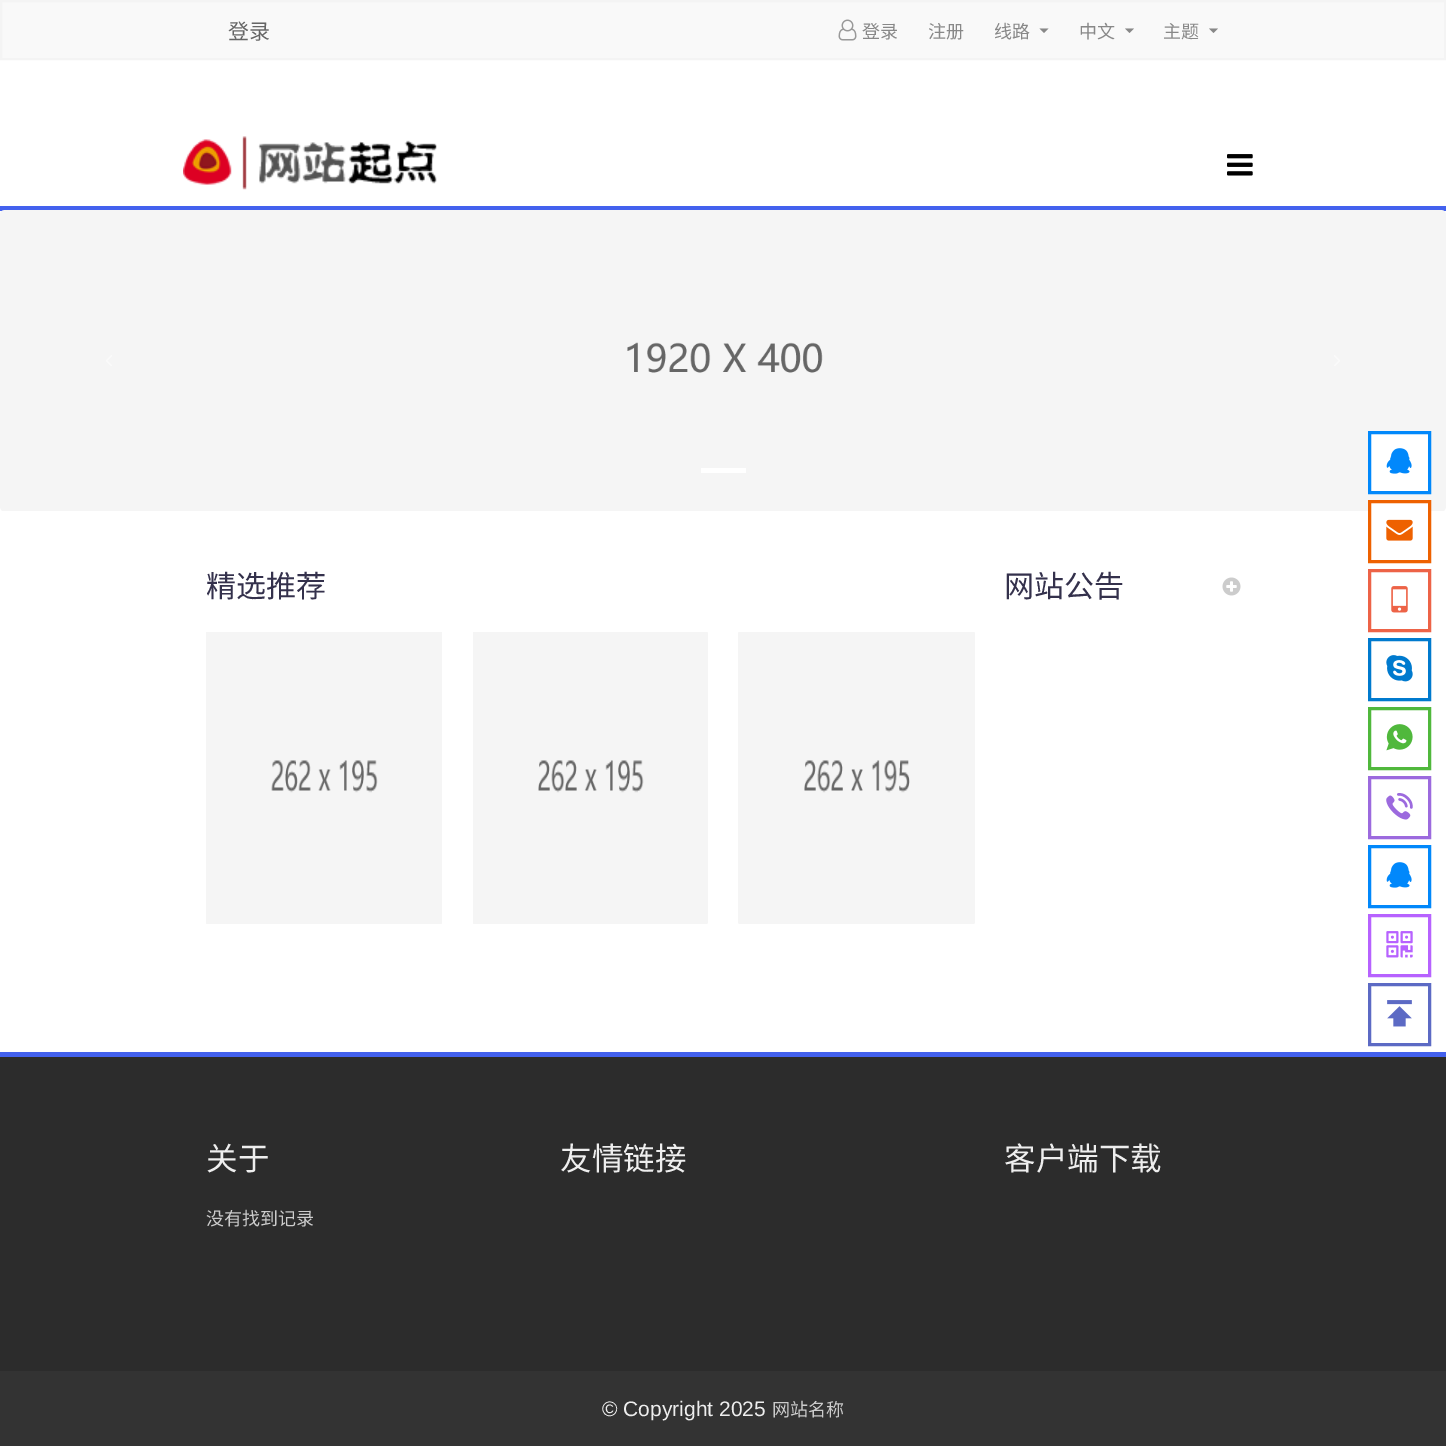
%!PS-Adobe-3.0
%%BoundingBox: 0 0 1446 1446
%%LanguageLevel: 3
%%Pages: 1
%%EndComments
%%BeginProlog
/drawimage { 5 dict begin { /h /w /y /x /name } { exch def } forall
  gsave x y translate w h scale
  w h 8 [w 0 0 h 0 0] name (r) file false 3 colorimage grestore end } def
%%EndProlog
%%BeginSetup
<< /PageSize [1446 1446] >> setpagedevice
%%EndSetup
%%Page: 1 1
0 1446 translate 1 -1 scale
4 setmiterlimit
1 setgray
0 0 1446 1446 rectfill
0.976 setgray
newpath 1 1 moveto 1445 1 lineto 1445 59 lineto 1 59 lineto closepath gsave fill grestore
0.957 setgray
2 setlinewidth
stroke
(images/1.raw) 838 19 19 22 drawimage
0.533 setgray
newpath 1039.5 28.5 moveto 1048.5 28.5 lineto 1044 33 lineto closepath fill
newpath 1125 28.5 moveto 1134 28.5 lineto 1129.5 33 lineto closepath fill
newpath 1209 28.5 moveto 1218 28.5 lineto 1213.5 33 lineto closepath fill
0.263 0.38 0.933 setrgbcolor
0 206 1446 5 rectfill
(images/2.raw) 183 136 254 54 drawimage
(images/3.raw) 1227 154 26 22 drawimage
(images/4.raw) 0 210 1446 301 drawimage
(images/5.raw) 106 355 6 11 drawimage
(images/6.raw) 1334 355 6 11 drawimage
1 setgray
701 468 45 5 rectfill
(images/7.raw) 206 632 236 292 drawimage
(images/8.raw) 473 632 235 292 drawimage
(images/9.raw) 738 632 237 292 drawimage
(images/10.raw) 1222 577 19 19 drawimage
newpath 1369.5 432.5 moveto 1429.5 432.5 lineto 1429.5 492.5 lineto 1369.5 492.5 lineto closepath gsave fill grestore
0.004 0.533 0.984 setrgbcolor
3 setlinewidth
stroke
(images/11.raw) 1386 448 26 26 drawimage
1 setgray
1371 503 57 8 rectfill
0.933 0.38 0 setrgbcolor
1369.5 501.5 60 60 rectstroke
(images/12.raw) 1386 519 27 22 drawimage
0.929 0.388 0.278 setrgbcolor
1369.5 570.5 60 60 rectstroke
(images/13.raw) 1391 586 17 27 drawimage
0 0.478 0.808 setrgbcolor
1369.5 639.5 60 60 rectstroke
(images/14.raw) 1386 655 27 27 drawimage
0.314 0.722 0.235 setrgbcolor
1369.5 708.5 60 60 rectstroke
(images/15.raw) 1386 724 27 27 drawimage
0.612 0.416 0.871 setrgbcolor
1369.5 777.5 60 60 rectstroke
(images/16.raw) 1386 793 27 27 drawimage
0.004 0.533 0.984 setrgbcolor
1369.5 846.5 60 60 rectstroke
(images/11.raw) 1386 862 26 26 drawimage
0.718 0.384 1 setrgbcolor
1369.5 915.5 60 60 rectstroke
(images/17.raw) 1386 931 27 27 drawimage
0.361 0.416 0.769 setrgbcolor
1369.5 984.5 60 60 rectstroke
(images/18.raw) 1387 1000 25 27 drawimage
0.173 setgray
0 1057 1446 314 rectfill
0.263 0.38 0.933 setrgbcolor
0 1052 1446 5 rectfill
0.2 setgray
0 1371 1446 75 rectfill
/NotoSansCJKSC-Regular [21 0 0 -21 0 0] selectfont
0.4 setgray
228 39 moveto (登录) show
/NotoSansCJKSC-Regular [18 0 0 -18 0 0] selectfont
0.533 setgray
862 38 moveto (登录) show
928 38 moveto (注册) show
994 38 moveto (线路) show
1079 38 moveto (中文) show
1163 38 moveto (主题) show
/NotoSansCJKSC-Regular [30 0 0 -30 0 0] selectfont
0.204 0.192 0.298 setrgbcolor
206 597 moveto (精选推荐) show
1004 597 moveto (网站公告) show
/NotoSansCJKSC-Regular [31.5 0 0 -31.5 0 0] selectfont
0.933 setgray
206 1170 moveto (关于) show
/NotoSansCJKSC-Regular [18 0 0 -18 0 0] selectfont
0.8 setgray
206 1225 moveto (没有找到记录) show
/NotoSansCJKSC-Regular [31.5 0 0 -31.5 0 0] selectfont
0.933 setgray
560 1170 moveto (友情链接) show
1004 1170 moveto (客户端下载) show
/LiberationSans-Regular [21 0 0 -21 0 0] selectfont
602 1416 moveto (© Copyright 2025) show
/NotoSansCJKSC-Regular [18 0 0 -18 0 0] selectfont
0.8 setgray
772 1416 moveto (网站名称) show
showpage
%%EOF
